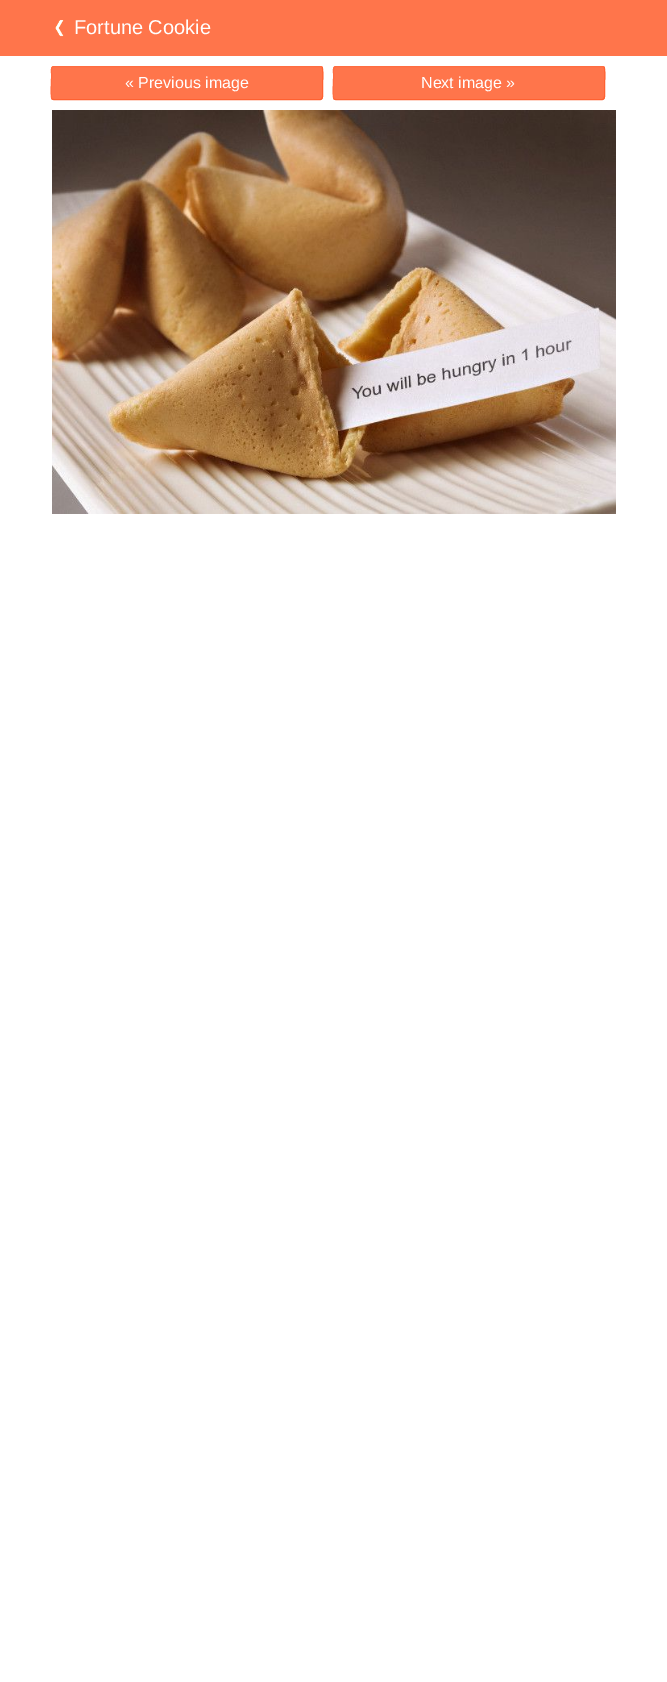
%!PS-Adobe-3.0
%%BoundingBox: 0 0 667 1682
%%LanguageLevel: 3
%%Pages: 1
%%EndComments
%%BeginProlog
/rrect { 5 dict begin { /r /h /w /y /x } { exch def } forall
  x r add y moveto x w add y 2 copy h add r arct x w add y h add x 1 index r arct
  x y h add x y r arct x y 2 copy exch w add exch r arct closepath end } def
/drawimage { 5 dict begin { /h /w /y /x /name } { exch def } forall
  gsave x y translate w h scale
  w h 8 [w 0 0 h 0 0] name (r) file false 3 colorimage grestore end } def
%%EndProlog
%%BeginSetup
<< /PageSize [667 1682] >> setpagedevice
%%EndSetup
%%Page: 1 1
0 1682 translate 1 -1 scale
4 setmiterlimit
1 setgray
0 0 667 1682 rectfill
1 0.459 0.294 setrgbcolor
0 0 667 56 rectfill
(images/1.raw) 55 20 9 17 drawimage
51 66 272 34 3 rrect fill
1 0.38 0.192 setrgbcolor
newpath 322 67 moveto 323.5 69 322.5 84.5 322.5 87.5 curveto 322.5 92.5 lineto 322.5 94 323.5 99.5 320 99.5 curveto 53.5 99.5 lineto 52 99 lineto stroke
1 0.427 0.255 setrgbcolor
newpath 52 99 moveto 50.5 97 51.5 81.5 51.5 78.5 curveto 51.5 73.5 lineto 51.5 72 50.5 66.5 54 66.5 curveto 320.5 66.5 lineto 322 67 lineto stroke
1 0.459 0.294 setrgbcolor
333 66 272 34 3 rrect fill
1 0.38 0.192 setrgbcolor
newpath 604 67 moveto 605.5 69 604.5 84.5 604.5 87.5 curveto 604.5 92.5 lineto 604.5 94 605.5 99.5 602 99.5 curveto 335.5 99.5 lineto 334 99 lineto stroke
1 0.427 0.255 setrgbcolor
newpath 334 99 moveto 332.5 97 333.5 81.5 333.5 78.5 curveto 333.5 73.5 lineto 333.5 72 332.5 66.5 336 66.5 curveto 602.5 66.5 lineto 604 67 lineto stroke
(images/2.raw) 52 110 564 404 drawimage
/LiberationSans-Regular [20 0 0 -20 0 0] selectfont
1 setgray
74 34 moveto (Fortune Cookie) show
/LiberationSans-Regular [16 0 0 -16 0 0] selectfont
125 88 moveto (« Previous image) show
421 88 moveto (Next image ») show
showpage
%%EOF
